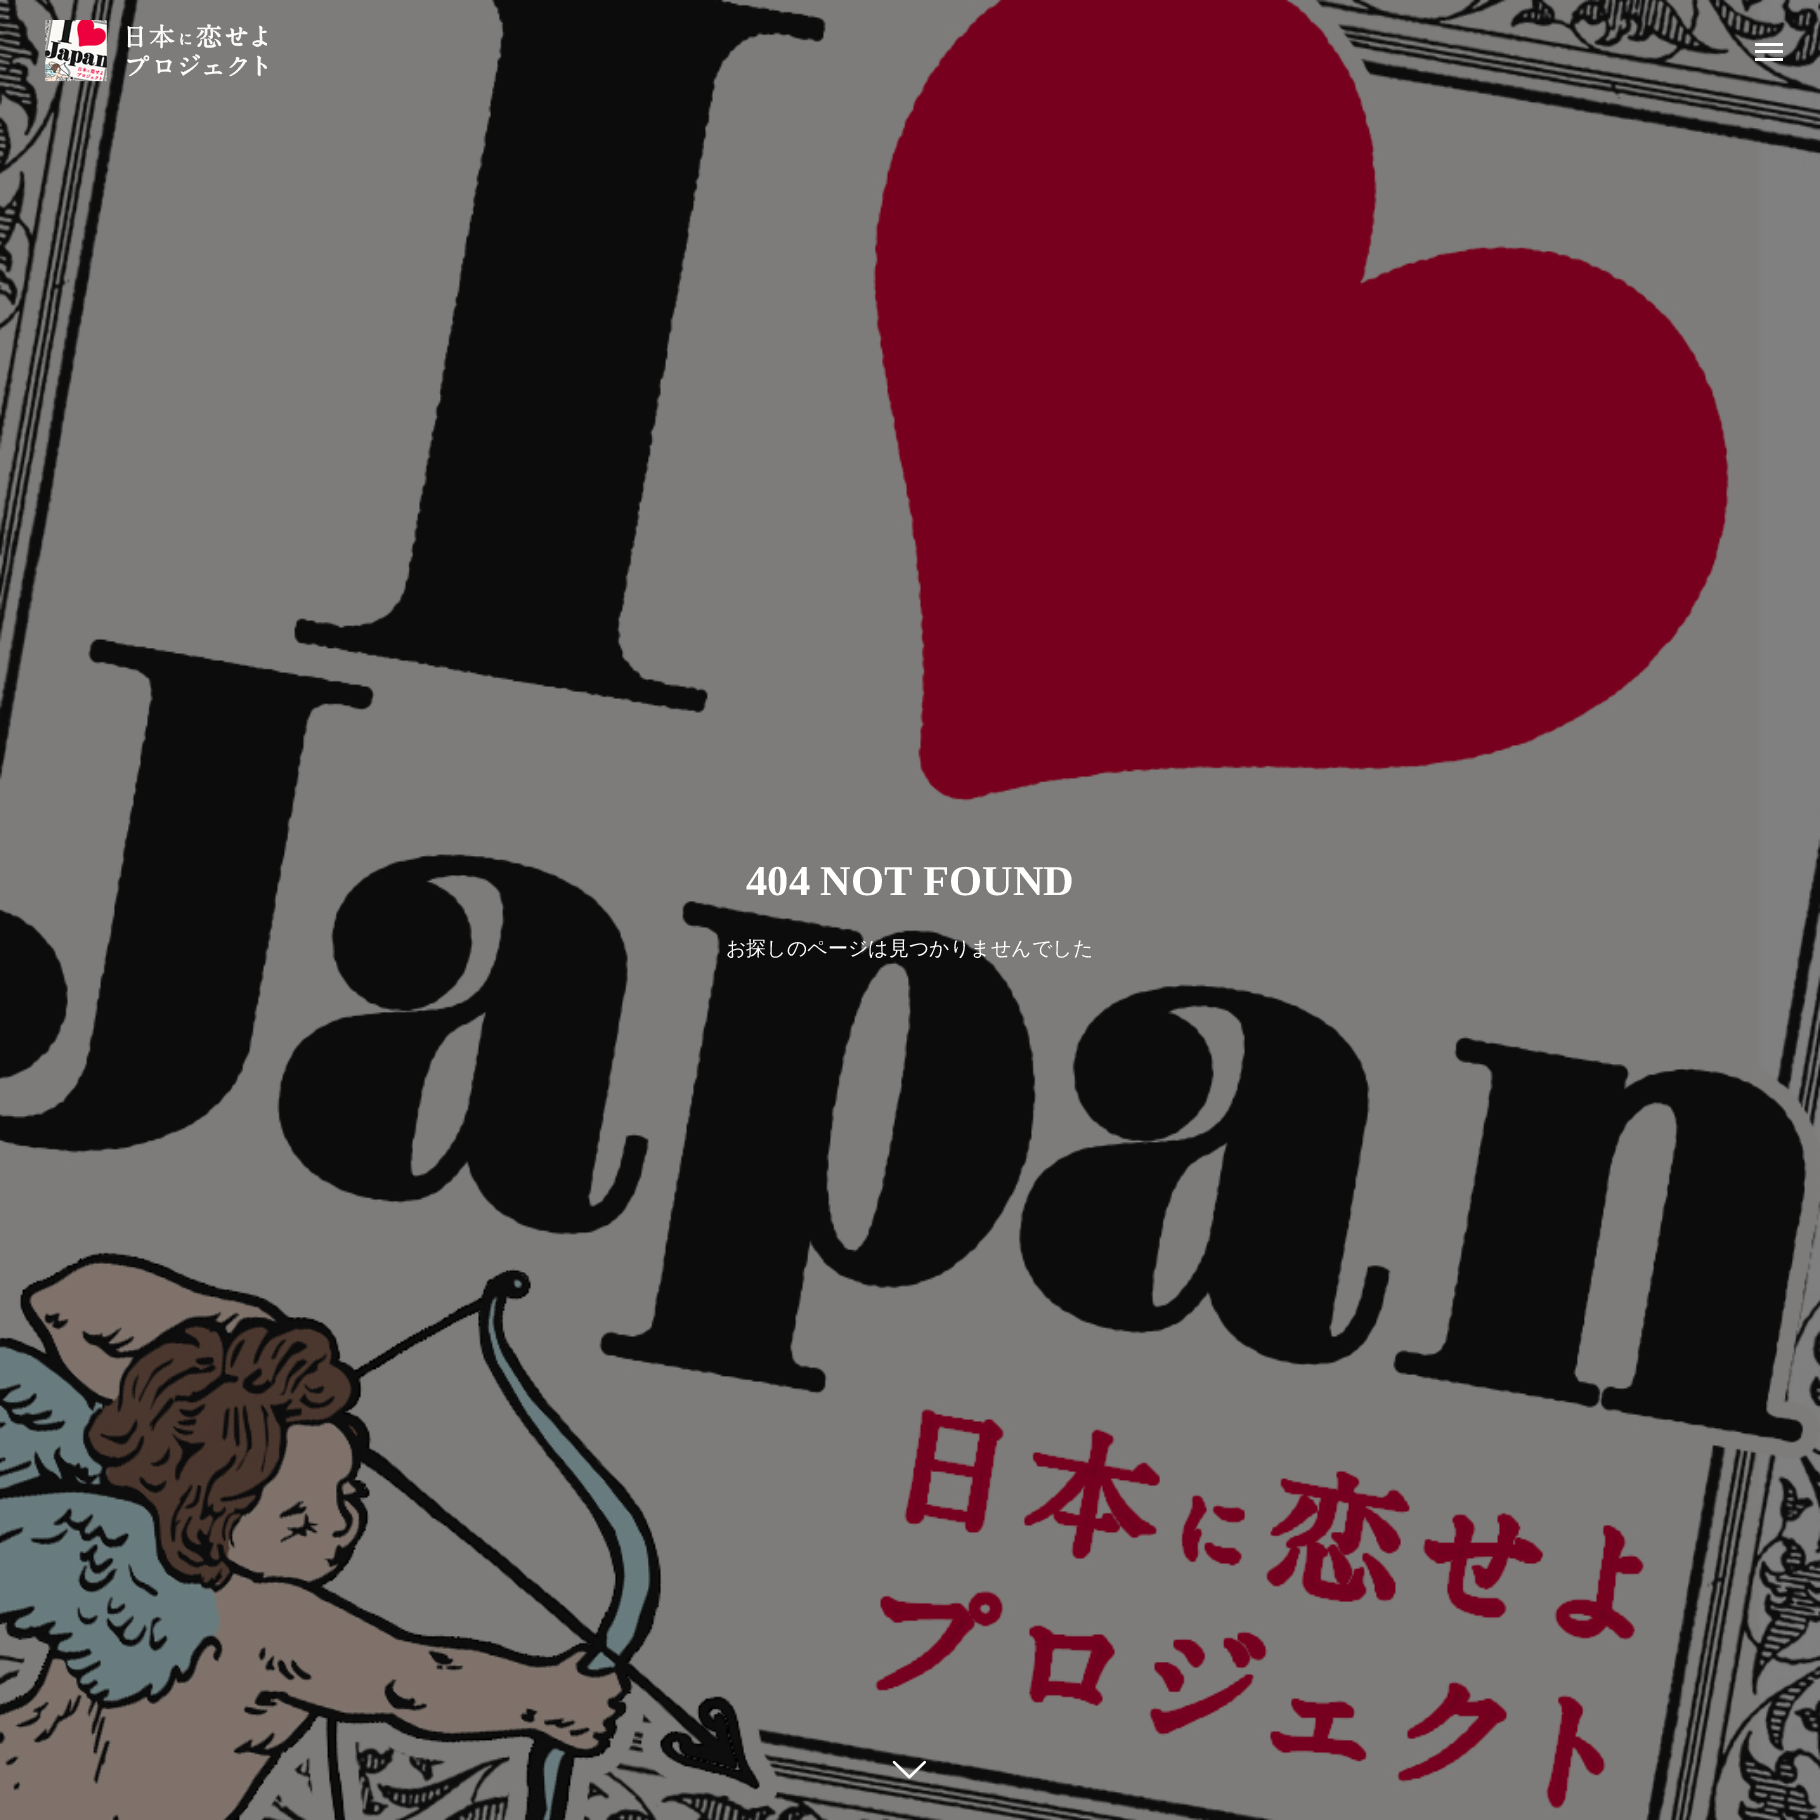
%!PS-Adobe-3.0
%%BoundingBox: 0 0 1820 1820
%%LanguageLevel: 3
%%Pages: 1
%%EndComments
%%BeginProlog
/drawimage { 5 dict begin { /h /w /y /x /name } { exch def } forall
  gsave x y translate w h scale
  w h 8 [w 0 0 h 0 0] name (r) file false 3 colorimage grestore end } def
%%EndProlog
%%BeginSetup
<< /PageSize [1820 1820] >> setpagedevice
%%EndSetup
%%Page: 1 1
0 1820 translate 1 -1 scale
4 setmiterlimit
1 setgray
0 0 1820 1820 rectfill
(images/2.raw) 0 0 1820 1820 drawimage
(images/1.raw) 45 20 223 62 drawimage
1755 43 28 3 rectfill
1755 50 28 3 rectfill
1755 58 28 3 rectfill
(images/3.raw) 892 1760 34 19 drawimage
/LiberationSerif-Bold [42.5 0 0 -42.5 0 0] selectfont
746 895 moveto (404 NOT FOUND) show
/WenQuanYiZenHei-Medium [20 0 0 -20 0 0] selectfont
726 955 moveto (お探しのページは見つかりませんでした) show
showpage
%%EOF
